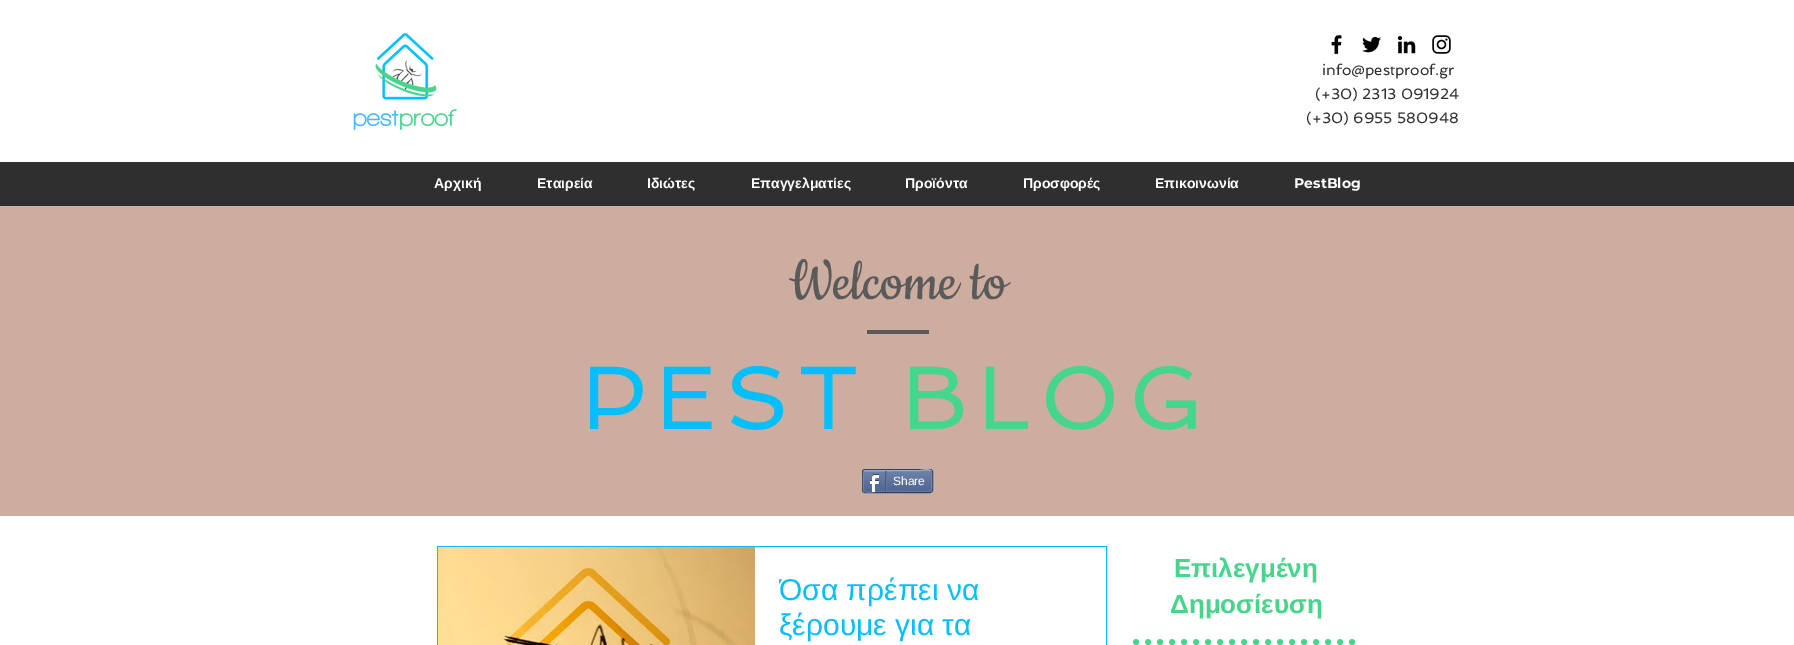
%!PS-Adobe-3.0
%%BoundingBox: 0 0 1794 645
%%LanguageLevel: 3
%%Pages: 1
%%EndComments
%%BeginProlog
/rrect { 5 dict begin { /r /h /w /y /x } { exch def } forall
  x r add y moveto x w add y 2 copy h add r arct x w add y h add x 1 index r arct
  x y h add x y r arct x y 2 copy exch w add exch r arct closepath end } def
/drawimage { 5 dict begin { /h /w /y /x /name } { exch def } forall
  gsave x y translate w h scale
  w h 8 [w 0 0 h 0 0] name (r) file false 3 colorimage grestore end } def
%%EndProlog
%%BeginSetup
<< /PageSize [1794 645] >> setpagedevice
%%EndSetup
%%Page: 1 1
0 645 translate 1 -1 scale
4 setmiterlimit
1 setgray
0 0 1794 645 rectfill
(images/1.raw) 353 33 104 97 drawimage
(images/2.raw) 1331 35 11 20 drawimage
(images/3.raw) 1362 36 19 17 drawimage
(images/4.raw) 1397 35 19 19 drawimage
(images/5.raw) 1432 35 19 19 drawimage
0.184 setgray
0 162 1794 44 rectfill
0.8 0.678 0.624 setrgbcolor
0 206 1794 310 rectfill
0.353 setgray
867 330 62 4 rectfill
0.176 0.271 0.396 setrgbcolor
862.5 469.5 70 23 2.5 rrect stroke
(images/6.raw) 863 471 69 21 drawimage
0.604 0.671 0.776 setrgbcolor
newpath 864 471 moveto 919 470.5 lineto 923 470.5 928 468 931 471 curveto stroke
0.435 0.514 0.678 setrgbcolor
newpath 931 471 moveto 932 471.5 932 490.5 931 491 curveto stroke
0.38 0.463 0.639 setrgbcolor
newpath 931 491 moveto 876 491.5 lineto 872 491.5 867 494 864 491 curveto stroke
0.435 0.514 0.678 setrgbcolor
newpath 864 491 moveto 863 490.5 863 471.5 864 471 curveto stroke
(images/7.raw) 869 474 10 18 drawimage
0.259 0.369 0.522 setrgbcolor
885 471 1 21 rectfill
0.38 0.463 0.639 setrgbcolor
886 471 1 20 rectfill
0.024 0.749 0.976 setrgbcolor
437.5 546.5 669 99 rectstroke
(images/8.raw) 438 547 6 98 drawimage
(images/9.raw) 444 547 311 98 drawimage
0.271 0.835 0.545 setrgbcolor
6 setlinewidth
1 setlinecap
[0 12] 0 setdash
newpath 1136 642 moveto 1356 642 lineto stroke
/Spinnaker-Regular [15 0 0 -15 0 0] selectfont
0.184 setgray
1322 75 moveto (info@pestproof.gr) show
1315 99 moveto (\(+30\) 2313 091924) show
1306 123 moveto (\(+30\) 6955 580948) show
/LiberationSans-Bold [14 0 0 -14 0 0] selectfont
1 setgray
434 188 moveto (Αρχική) show
537 188 moveto (Εταιρεία) show
647 188 moveto (Ιδιώτες) show
751 188 moveto (Επαγγελματίες) show
905 188 moveto (Προϊόντα) show
1023 188 moveto (Προσφορές) show
1155 188 moveto (Επικοινωνία) show
/Montserrat-Bold [14 0 0 -14 0 0] selectfont
1294 188 moveto (PestBlog) show
/Cookie-Regular [64 0 0 -64 0 0] selectfont
0.353 setgray
789 299 moveto (Welcome to) show
/Spinnaker-Regular [90 0 0 -90 0 0] selectfont
0.024 0.749 0.976 setrgbcolor
582 429 moveto 9 0 (PEST) ashow
0.271 0.835 0.545 setrgbcolor
902 429 moveto 9 0 (BLOG) ashow
/LiberationSans-Regular [12 0 0 -12 0 0] selectfont
1 setgray
893 485 moveto (Share) show
gsave
779 572 303 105 rectclip
/LiberationSans-Regular [30 0 0 -30 0 0] selectfont
0.024 0.749 0.976 setrgbcolor
779 600 moveto (Όσα πρέπει να) show
grestore
/LiberationSans-Regular [30 0 0 -30 0 0] selectfont
0.024 0.749 0.976 setrgbcolor
779 635 moveto (ξέρουμε για τα) show
/LiberationSans-Bold [26 0 0 -26 0 0] selectfont
0.271 0.835 0.545 setrgbcolor
1174 577 moveto (Επιλεγμένη) show
1170 613 moveto (Δημοσίευση) show
showpage
%%EOF
